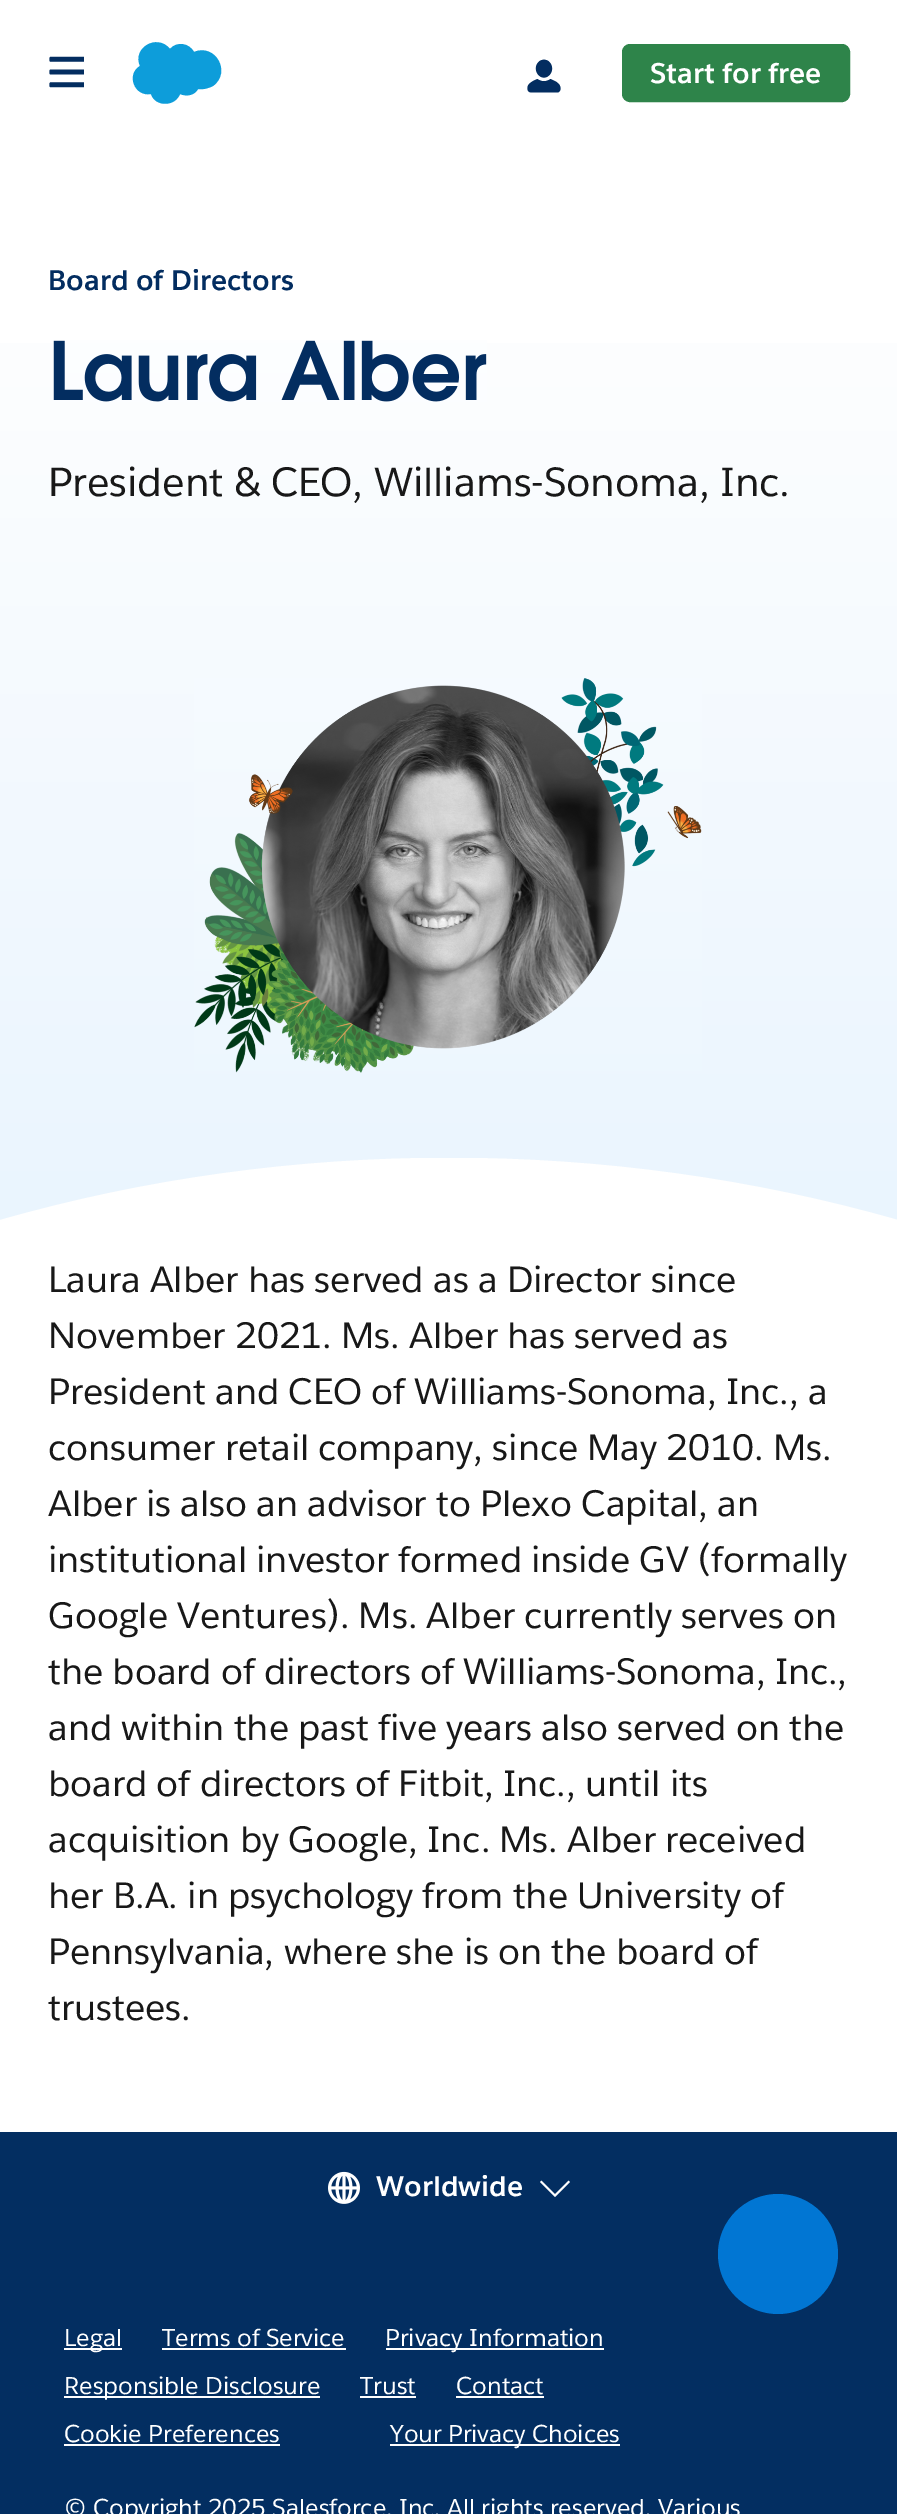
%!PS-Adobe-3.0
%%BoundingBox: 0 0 897 2514
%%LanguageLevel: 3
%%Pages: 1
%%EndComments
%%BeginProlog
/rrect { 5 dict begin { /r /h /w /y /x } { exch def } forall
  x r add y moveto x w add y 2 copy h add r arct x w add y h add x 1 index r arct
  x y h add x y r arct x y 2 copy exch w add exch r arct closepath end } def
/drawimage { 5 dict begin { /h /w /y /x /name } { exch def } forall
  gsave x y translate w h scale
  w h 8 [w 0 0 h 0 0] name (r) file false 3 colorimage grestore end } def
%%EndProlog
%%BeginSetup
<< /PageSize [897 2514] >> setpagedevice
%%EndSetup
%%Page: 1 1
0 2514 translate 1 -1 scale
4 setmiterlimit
1 setgray
0 0 897 2514 rectfill
(images/1.raw) 49 56 35 32 drawimage
0.051 0.616 0.855 setrgbcolor
newpath 170 49 moveto 177 41 189 43 194 52 curveto 215 43 232 72 213 86 curveto 209 88 203 90 198 89 curveto 195 95 187 97 180 94 curveto 175 107 155 107 151 94 curveto 134 97 126 74 140 66 curveto 132 48 157 33 170 49 curveto closepath fill
(images/2.raw) 527 59 34 34 drawimage
0.18 0.518 0.29 setrgbcolor
624 46 224 54 6 rrect gsave fill grestore
4 setlinewidth
stroke
gsave newpath 0 343 moveto 897 343 lineto 897 1220 lineto 0 1220 lineto closepath clip newpath
<< /ShadingType 2 /ColorSpace /DeviceRGB /Coords [449 224 449 1220] /Extend [true true] /Function << /FunctionType 2 /Domain [0 1] /C0 [1 1 1] /C1 [0.918 0.961 0.996] /N 1 >> >> shfill grestore
(images/3.raw) 53 340 434 62 drawimage
(images/4.raw) 194 678 508 395 drawimage
gsave
0 1158 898 62 rectclip
1 setgray
newpath 0 1220 moveto 290 1137 608 1137 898 1220 curveto closepath fill
grestore
0.012 0.18 0.38 setrgbcolor
0 2132 897 382 rectfill
(images/5.raw) 328 2171 32 33 drawimage
(images/6.raw) 540 2180 30 17 drawimage
1 setgray
64 2348 58 2 rectfill
162 2348 184 2 rectfill
386 2348 218 2 rectfill
64 2396 256 2 rectfill
360 2396 56 2 rectfill
456 2396 88 2 rectfill
64 2444 216 2 rectfill
390 2444 230 2 rectfill
0.004 0.463 0.827 setrgbcolor
newpath 778 2254 60 0 360 arc closepath fill
/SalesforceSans-Bold [28 0 0 -28 0 0] selectfont
1 setgray
650 83 moveto (Start for free) show
0.012 0.176 0.376 setrgbcolor
48 290 moveto (Board of Directors) show
/SalesforceSans-Regular [40 0 0 -40 0 0] selectfont
0.094 setgray
48 496 moveto -0.05 0 (President & CEO, Williams-Sonoma, Inc.) ashow
/SalesforceSans-Regular [36 0 0 -36 0 0] selectfont
48 1292 moveto -0.05 0 (Laura Alber has served as a Director since) ashow
48 1348 moveto -0.05 0 (November 2021. Ms. Alber has served as) ashow
48 1404 moveto -0.05 0 (President and CEO of Williams-Sonoma, Inc., a) ashow
48 1460 moveto -0.05 0 (consumer retail company, since May 2010. Ms.) ashow
48 1516 moveto -0.05 0 (Alber is also an advisor to Plexo Capital, an) ashow
48 1572 moveto -0.05 0 (institutional investor formed inside GV \(formally) ashow
48 1628 moveto -0.05 0 (Google Ventures\). Ms. Alber currently serves on) ashow
48 1684 moveto -0.05 0 (the board of directors of Williams-Sonoma, Inc.,) ashow
48 1740 moveto -0.05 0 (and within the past five years also served on the) ashow
48 1796 moveto -0.05 0 (board of directors of Fitbit, Inc., until its) ashow
48 1852 moveto -0.05 0 (acquisition by Google, Inc. Ms. Alber received) ashow
48 1908 moveto -0.05 0 (her B.A. in psychology from the University of) ashow
48 1964 moveto -0.05 0 (Pennsylvania, where she is on the board of) ashow
48 2020 moveto -0.05 0 (trustees.) ashow
/SalesforceSans-Bold [28 0 0 -28 0 0] selectfont
1 setgray
376 2196 moveto (Worldwide) show
/SalesforceSans-Regular [24 0 0 -24 0 0] selectfont
64 2346 moveto (Legal) show
162 2346 moveto (Terms of Service) show
385 2346 moveto (Privacy Information) show
64 2394 moveto (Responsible Disclosure) show
360 2394 moveto (Trust) show
456 2394 moveto (Contact) show
64 2442 moveto (Cookie Preferences) show
390 2442 moveto (Your Privacy Choices) show
64 2516 moveto (© Copyright 2025 Salesforce, Inc. All rights reserved. Various) show
showpage
%%EOF
